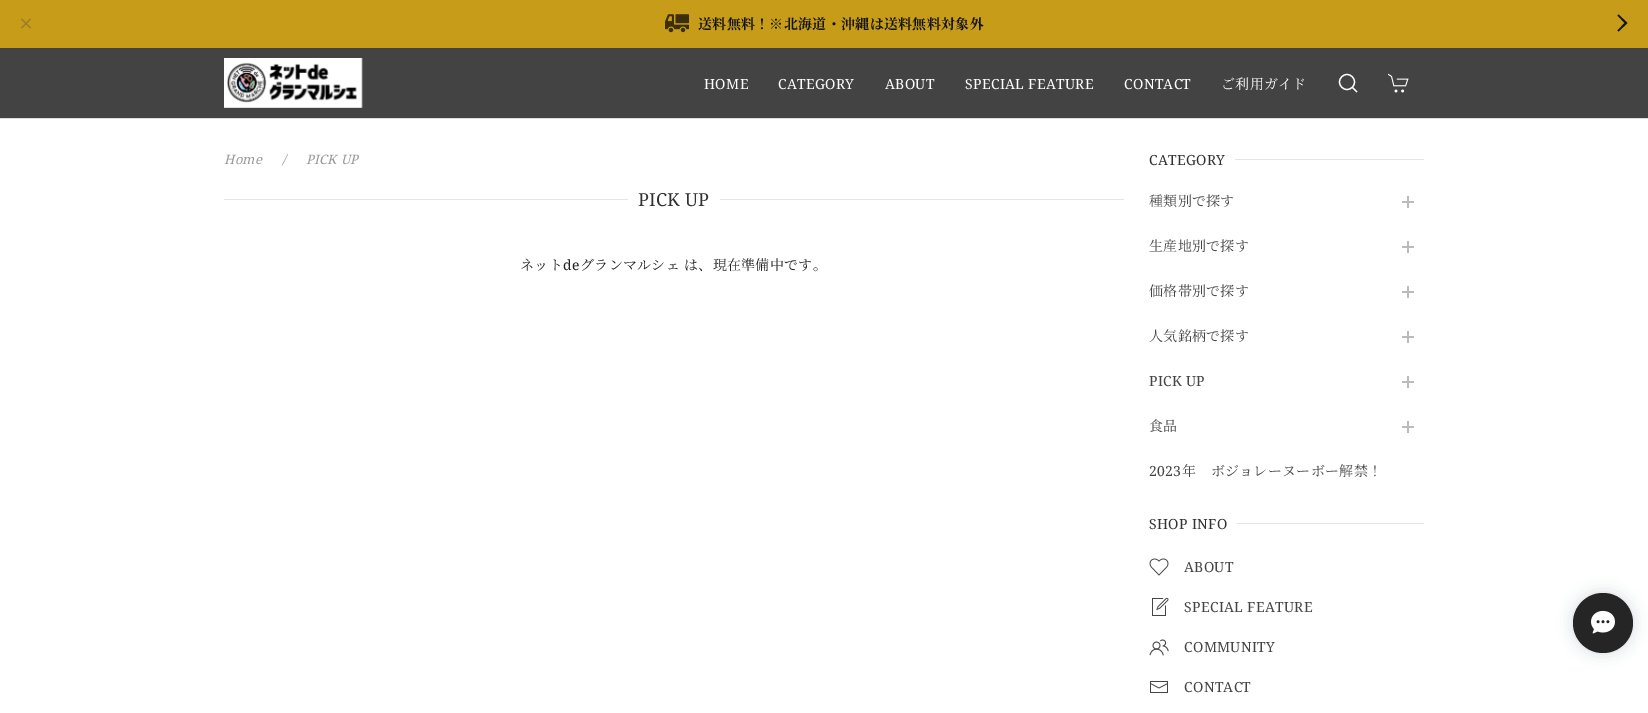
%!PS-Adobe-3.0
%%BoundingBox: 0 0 1648 713
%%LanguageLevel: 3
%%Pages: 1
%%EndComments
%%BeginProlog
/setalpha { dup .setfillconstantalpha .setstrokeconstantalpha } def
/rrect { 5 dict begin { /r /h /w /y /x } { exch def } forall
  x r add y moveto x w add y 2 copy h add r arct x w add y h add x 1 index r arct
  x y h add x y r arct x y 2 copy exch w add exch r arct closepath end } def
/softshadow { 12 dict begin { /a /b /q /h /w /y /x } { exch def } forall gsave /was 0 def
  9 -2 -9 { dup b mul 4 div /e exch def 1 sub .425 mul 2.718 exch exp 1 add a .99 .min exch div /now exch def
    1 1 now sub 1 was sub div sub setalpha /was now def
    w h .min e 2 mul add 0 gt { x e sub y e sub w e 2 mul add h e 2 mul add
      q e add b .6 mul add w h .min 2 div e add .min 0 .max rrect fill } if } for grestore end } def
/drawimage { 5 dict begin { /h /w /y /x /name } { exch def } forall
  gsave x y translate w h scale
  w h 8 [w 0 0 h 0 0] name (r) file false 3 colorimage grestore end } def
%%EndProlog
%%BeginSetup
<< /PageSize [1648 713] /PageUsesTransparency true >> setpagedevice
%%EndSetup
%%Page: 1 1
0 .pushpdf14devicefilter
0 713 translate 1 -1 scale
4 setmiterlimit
1 setgray
0 0 1648 713 rectfill
0.263 setgray
0 48 1648 70 rectfill
0.867 setgray
0 118 1648 1 rectfill
0.78 0.612 0.094 setrgbcolor
0 0 1648 48 rectfill
(images/1.raw) 21 18 10 11 drawimage
(images/2.raw) 665 14 24 19 drawimage
0.078 setgray
newpath 1624.5 23 moveto 1617.5 15.5 lineto 1618.5 14.5 lineto 1627.5 23 lineto 1618.5 31.5 lineto 1617.5 30.5 lineto closepath fill
(images/3.raw) 224 58 139 50 drawimage
1 setgray
1.2 setlinewidth
newpath 1347 82 7.5 0 360 arc closepath stroke
newpath 1352.5 87.5 moveto 1357 92 lineto closepath stroke
(images/4.raw) 1388 73 21 20 drawimage
0.898 setgray
224 199 404 1 rectfill
720 199 404 1 rectfill
1235 159 189 1 rectfill
0.733 setgray
1402 201 12 2 rectfill
1407 196 2 12 rectfill
1402 246 12 2 rectfill
1407 241 2 12 rectfill
1402 291 12 2 rectfill
1407 286 2 12 rectfill
1402 336 12 2 rectfill
1407 331 2 12 rectfill
1402 381 12 2 rectfill
1407 376 2 12 rectfill
1402 426 12 2 rectfill
1407 421 2 12 rectfill
0.898 setgray
1237 523 187 1 rectfill
(images/5.raw) 1149 558 20 18 drawimage
(images/6.raw) 1152 597 17 19 drawimage
(images/7.raw) 1149 639 20 17 drawimage
(images/8.raw) 1150 681 18 12 drawimage
0.2 0.259 0.345 setrgbcolor
1573 593 60 60 30 7.5 0.2 softshadow
0.145 setgray
newpath 1603 623 30 0 360 arc closepath fill
(images/9.raw) 1591 610 24 24 drawimage
/NotoSerifJP-Bold [14 0 0 -14 0 0] selectfont
0.078 setgray
698 29 moveto 0.3 0 (送料無料！※北海道・沖縄は送料無料対象外) ashow
/NotoSerif-Regular [14 0 0 -14 0 0] selectfont
1 setgray
704 89 moveto 0.3 0 (HOME) ashow
778 89 moveto 0.3 0 (CATEGORY) ashow
885 89 moveto 0.3 0 (ABOUT) ashow
965 89 moveto 0.3 0 (SPECIAL FEATURE) ashow
1124 89 moveto 0.3 0 (CONTACT) ashow
/NotoSerifJP-Regular [14 0 0 -14 0 0] selectfont
1221 89 moveto 0.3 0 (ご利用ガイド) ashow
/NotoSerif-Italic [13 0 0 -13 0 0] selectfont
0.6 setgray
224 164 moveto 0.3 0 (Home) ashow
282 164 moveto 0.3 0 (/) ashow
306 164 moveto 0.3 0 (PICK UP) ashow
/NotoSerif-Regular [18 0 0 -18 0 0] selectfont
0.2 setgray
638 206 moveto 0.3 0 (PICK UP) ashow
/NotoSerifJP-Regular [14 0 0 -14 0 0] selectfont
0.129 setgray
520 270 moveto 0.3 0 (ネット) ashow
/NotoSerif-Regular [14 0 0 -14 0 0] selectfont
563 270 moveto 0.3 0 (de) ashow
/NotoSerifJP-Regular [14 0 0 -14 0 0] selectfont
580 270 moveto 0.3 0 (グランマルシェ は、現在準備中です。) ashow
/NotoSerif-Regular [14 0 0 -14 0 0] selectfont
0.2 setgray
1149 165 moveto 0.3 0 (CATEGORY) ashow
/NotoSerifJP-Regular [14 0 0 -14 0 0] selectfont
0.271 setgray
1149 206 moveto 0.3 0 (種類別で探す) ashow
1149 251 moveto 0.3 0 (生産地別で探す) ashow
1149 296 moveto 0.3 0 (価格帯別で探す) ashow
1149 341 moveto 0.3 0 (人気銘柄で探す) ashow
/NotoSerif-Regular [14 0 0 -14 0 0] selectfont
1149 386 moveto 0.3 0 (PICK UP) ashow
/NotoSerifJP-Regular [14 0 0 -14 0 0] selectfont
1149 431 moveto 0.3 0 (食品) ashow
/NotoSerif-Regular [14 0 0 -14 0 0] selectfont
1149 476 moveto 0.3 0 (2023) ashow
/NotoSerifJP-Regular [14 0 0 -14 0 0] selectfont
1182 476 moveto 0.3 0 (年　ボジョレーヌーボー解禁！) ashow
/NotoSerif-Regular [14 0 0 -14 0 0] selectfont
0.2 setgray
1149 529 moveto 0.3 0 (SHOP INFO) ashow
0.271 setgray
1184 572 moveto 0.3 0 (ABOUT) ashow
1184 612 moveto 0.3 0 (SPECIAL FEATURE) ashow
1184 652 moveto 0.3 0 (COMMUNITY) ashow
1184 692 moveto 0.3 0 (CONTACT) ashow
.poppdf14devicefilter showpage
%%EOF
